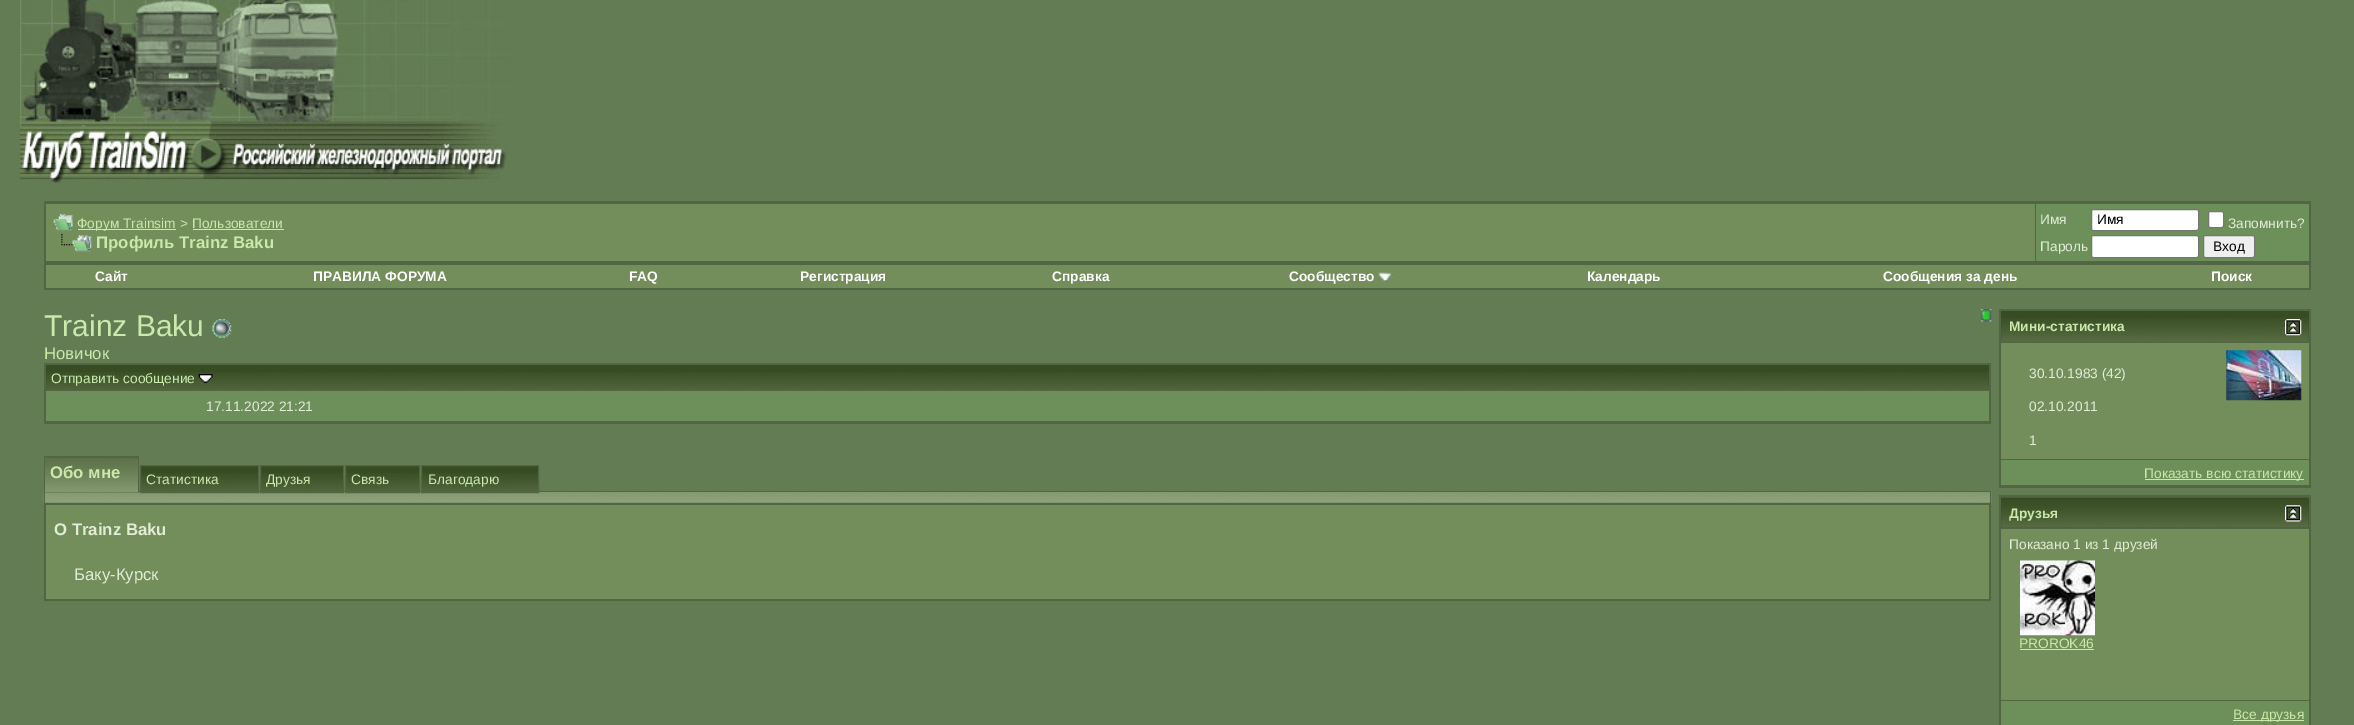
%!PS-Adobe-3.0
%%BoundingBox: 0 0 2354 725
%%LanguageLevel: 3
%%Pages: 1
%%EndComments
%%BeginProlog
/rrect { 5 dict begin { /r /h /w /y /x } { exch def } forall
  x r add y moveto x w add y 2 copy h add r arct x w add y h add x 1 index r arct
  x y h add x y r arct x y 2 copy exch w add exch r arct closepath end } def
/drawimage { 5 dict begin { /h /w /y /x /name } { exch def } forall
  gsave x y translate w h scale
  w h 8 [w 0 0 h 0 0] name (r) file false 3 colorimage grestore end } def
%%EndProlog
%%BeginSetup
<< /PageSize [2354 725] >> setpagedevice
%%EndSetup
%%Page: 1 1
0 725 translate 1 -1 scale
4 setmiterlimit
0.392 0.486 0.329 setrgbcolor
0 0 2354 725 rectfill
(images/1.raw) 20 0 490 183 drawimage
0.322 0.4 0.271 setrgbcolor
44 201 2267 63 rectfill
0.451 0.557 0.353 setrgbcolor
46 204 1989 57 rectfill
(images/2.raw) 53 213 20 18 drawimage
0.792 0.914 0.671 setrgbcolor
78 229 98 1 rectfill
193 229 91 1 rectfill
(images/3.raw) 61 234 31 18 drawimage
0.427 0.561 0.353 setrgbcolor
2036 204 273 57 rectfill
1 setgray
2091.5 209.5 107 21 2 rrect gsave fill grestore
0.463 setgray
stroke
1 setgray
2208.5 211.5 15 16 2 rrect gsave fill grestore
0.463 setgray
stroke
1 setgray
2091.5 235.5 107 22 2 rrect gsave fill grestore
0.463 setgray
stroke
0.937 setgray
2203.5 235.5 51 22 2 rrect gsave fill grestore
0.463 setgray
stroke
0.322 0.4 0.271 setrgbcolor
45 264 2265 25 rectfill
2310 264 1 26 rectfill
44 289 2267 1 rectfill
44 264 1 26 rectfill
0.451 0.557 0.353 setrgbcolor
46 265 2263 23 rectfill
(images/4.raw) 1378 272 15 10 drawimage
(images/5.raw) 212 319 20 19 drawimage
(images/6.raw) 1981 309 11 13 drawimage
0.322 0.4 0.271 setrgbcolor
44 363 1947 61 rectfill
0.22 0.298 0.141 setrgbcolor
46 365 1943 25 rectfill
(images/7.raw) 46 372 1943 18 drawimage
(images/8.raw) 198 374 15 9 drawimage
0.427 0.561 0.353 setrgbcolor
46 391 1943 30 rectfill
(images/14.raw) 43 491 1949 12 drawimage
0.322 0.4 0.271 setrgbcolor
44 491 1 12 rectfill
44 456 95 37 rectfill
(images/9.raw) 45 458 93 35 drawimage
0.22 0.298 0.141 setrgbcolor
141 466 117 7 rectfill
0.322 0.4 0.271 setrgbcolor
139 491 1852 1 rectfill
(images/10.raw) 141 473 117 19 drawimage
140.5 465.5 118 27 rectstroke
0.22 0.298 0.141 setrgbcolor
261 466 82 7 rectfill
(images/11.raw) 261 473 82 19 drawimage
0.322 0.4 0.271 setrgbcolor
260.5 465.5 83 27 rectstroke
0.22 0.298 0.141 setrgbcolor
346 466 73 7 rectfill
(images/12.raw) 346 473 73 19 drawimage
0.322 0.4 0.271 setrgbcolor
345.5 465.5 74 27 rectstroke
0.22 0.298 0.141 setrgbcolor
422 466 116 7 rectfill
(images/13.raw) 422 473 116 19 drawimage
0.322 0.4 0.271 setrgbcolor
421.5 465.5 117 27 rectstroke
1990 491 1 12 rectfill
44 503 1947 98 rectfill
0.451 0.557 0.353 setrgbcolor
46 505 1943 94 rectfill
0.322 0.4 0.271 setrgbcolor
1999 309 312 179 rectfill
0.22 0.298 0.141 setrgbcolor
2001 311 308 30 rectfill
(images/15.raw) 2001 318 308 24 drawimage
(images/16.raw) 2285 319 17 17 drawimage
0.451 0.557 0.353 setrgbcolor
2001 343 308 116 rectfill
0.427 0.561 0.353 setrgbcolor
2226 350 75 50 rectfill
(images/17.raw) 2226 350 76 51 drawimage
2001 460 308 25 rectfill
0.792 0.914 0.671 setrgbcolor
2145 479 159 1 rectfill
0.322 0.4 0.271 setrgbcolor
1999 495 312 230 rectfill
0.22 0.298 0.141 setrgbcolor
2001 498 308 30 rectfill
(images/18.raw) 2001 497 308 31 drawimage
(images/19.raw) 2285 505 17 17 drawimage
0.451 0.557 0.353 setrgbcolor
2001 529 308 171 rectfill
0.427 0.561 0.353 setrgbcolor
2020 560 75 1 rectfill
(images/20.raw) 2020 560 75 76 drawimage
0.792 0.914 0.671 setrgbcolor
2020 649 74 1 rectfill
0.427 0.561 0.353 setrgbcolor
2001 701 308 24 rectfill
0.792 0.914 0.671 setrgbcolor
2233 720 71 1 rectfill
/LiberationSans-Regular [13.75 0 0 -13.75 0 0] selectfont
77 228 moveto (Форум Trainsim) show
180 228 moveto (> Пользователи) show
/LiberationSans-Bold [16.75 0 0 -16.75 0 0] selectfont
96 248 moveto (Профиль Trainz Baku) show
/LiberationSans-Regular [13.75 0 0 -13.75 0 0] selectfont
0.886 0.925 0.847 setrgbcolor
2040 224 moveto (Имя) show
0 setgray
2097 224 moveto (Имя) show
0.886 0.925 0.847 setrgbcolor
2228 228 moveto (Запомнить?) show
2040 251 moveto (Пароль) show
0 setgray
2213 251 moveto (Вход) show
/LiberationSans-Bold [13.75 0 0 -13.75 0 0] selectfont
1 setgray
95 281 moveto (Сайт) show
313 281 moveto (ПРАВИЛА ФОРУМА) show
629 281 moveto (FAQ) show
800 281 moveto (Регистрация) show
1052 281 moveto (Справка) show
1289 281 moveto (Сообщество) show
1587 281 moveto (Календарь) show
1883 281 moveto (Сообщения за день) show
2211 281 moveto (Поиск) show
/LiberationSans-Regular [30 0 0 -30 0 0] selectfont
0.792 0.914 0.671 setrgbcolor
44 336 moveto (Trainz Baku) show
/LiberationSans-Regular [16.75 0 0 -16.75 0 0] selectfont
44 359 moveto (Новичок) show
/LiberationSans-Regular [13.75 0 0 -13.75 0 0] selectfont
51 383 moveto (Отправить сообщение) show
0.886 0.925 0.847 setrgbcolor
206 411 moveto (17.11.2022 21:21) show
/LiberationSans-Bold [16.75 0 0 -16.75 0 0] selectfont
0.792 0.914 0.671 setrgbcolor
50 478 moveto (Обо мне) show
/LiberationSans-Regular [13.75 0 0 -13.75 0 0] selectfont
146 484 moveto (Статистика) show
266 484 moveto (Друзья) show
351 484 moveto (Связь) show
428 484 moveto (Благодарю) show
/LiberationSans-Bold [16.75 0 0 -16.75 0 0] selectfont
0.886 0.925 0.847 setrgbcolor
54 535 moveto (О Trainz Baku) show
/LiberationSans-Regular [16.75 0 0 -16.75 0 0] selectfont
74 580 moveto (Баку-Курск) show
/LiberationSans-Bold [13.75 0 0 -13.75 0 0] selectfont
0.792 0.914 0.671 setrgbcolor
2009 331 moveto (Мини-статистика) show
/LiberationSans-Regular [13.75 0 0 -13.75 0 0] selectfont
0.886 0.925 0.847 setrgbcolor
2029 378 moveto (30.10.1983 \(42\)) show
2029 411 moveto (02.10.2011) show
2029 445 moveto (1) show
0.792 0.914 0.671 setrgbcolor
2144 478 moveto (Показать всю статистику) show
/LiberationSans-Bold [13.75 0 0 -13.75 0 0] selectfont
2009 518 moveto (Друзья) show
/LiberationSans-Regular [13.75 0 0 -13.75 0 0] selectfont
0.886 0.925 0.847 setrgbcolor
2009 549 moveto (Показано 1 из 1 друзей) show
0.792 0.914 0.671 setrgbcolor
2019 648 moveto (PROROK46) show
2233 719 moveto (Все друзья) show
showpage
%%EOF
